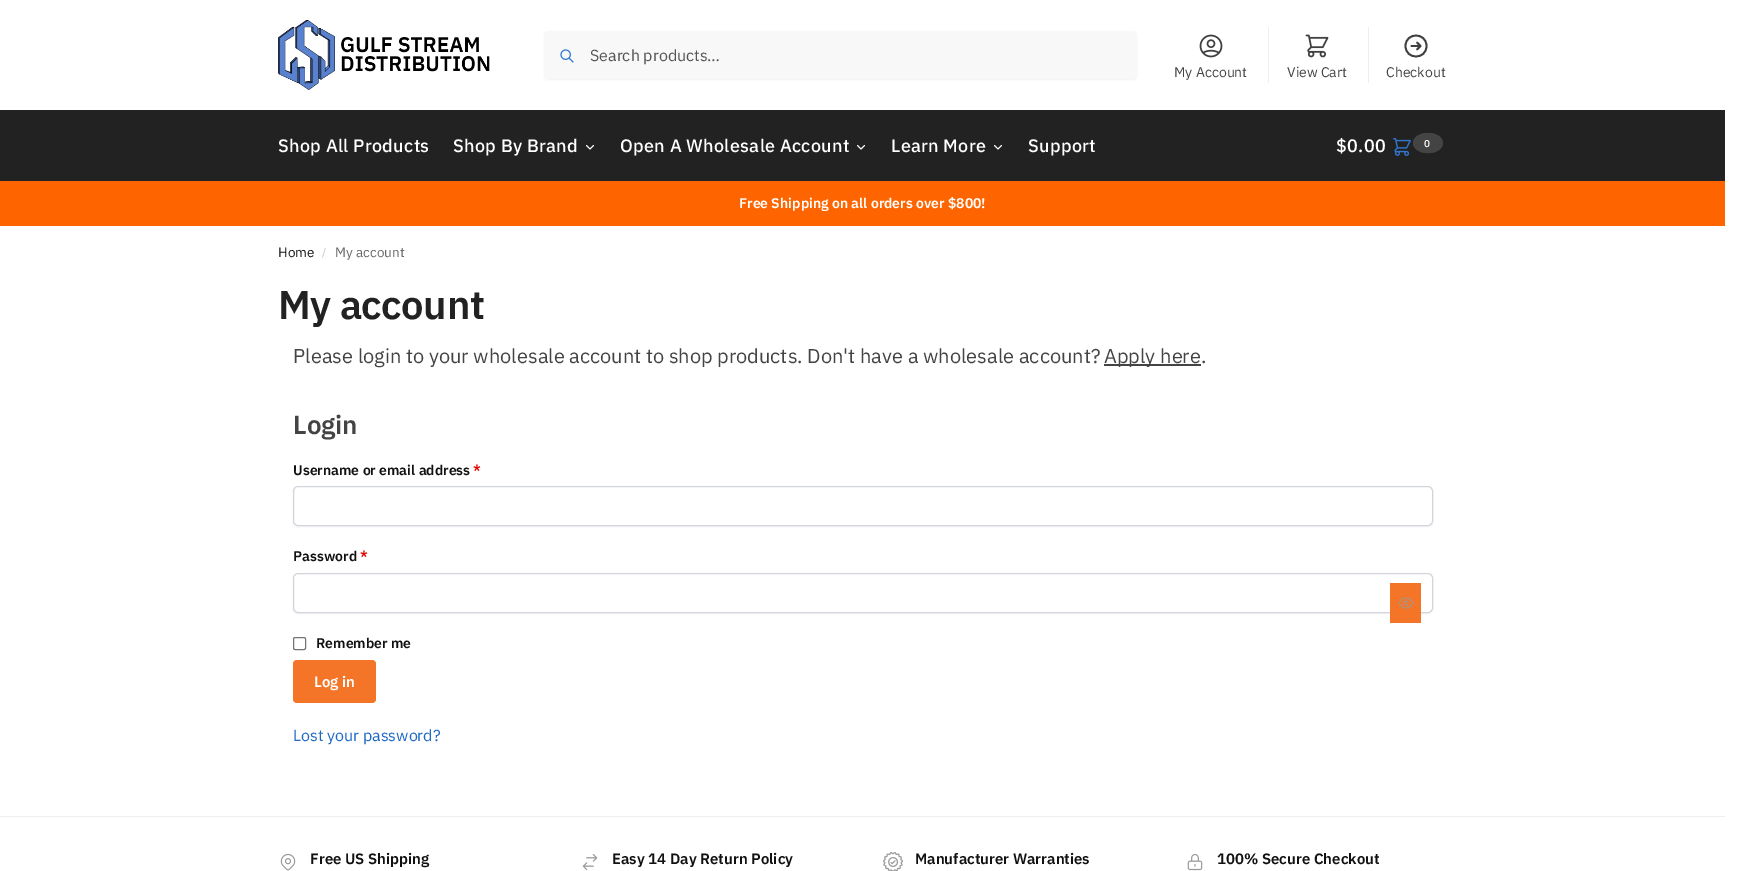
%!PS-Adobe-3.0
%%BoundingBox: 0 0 1740 871
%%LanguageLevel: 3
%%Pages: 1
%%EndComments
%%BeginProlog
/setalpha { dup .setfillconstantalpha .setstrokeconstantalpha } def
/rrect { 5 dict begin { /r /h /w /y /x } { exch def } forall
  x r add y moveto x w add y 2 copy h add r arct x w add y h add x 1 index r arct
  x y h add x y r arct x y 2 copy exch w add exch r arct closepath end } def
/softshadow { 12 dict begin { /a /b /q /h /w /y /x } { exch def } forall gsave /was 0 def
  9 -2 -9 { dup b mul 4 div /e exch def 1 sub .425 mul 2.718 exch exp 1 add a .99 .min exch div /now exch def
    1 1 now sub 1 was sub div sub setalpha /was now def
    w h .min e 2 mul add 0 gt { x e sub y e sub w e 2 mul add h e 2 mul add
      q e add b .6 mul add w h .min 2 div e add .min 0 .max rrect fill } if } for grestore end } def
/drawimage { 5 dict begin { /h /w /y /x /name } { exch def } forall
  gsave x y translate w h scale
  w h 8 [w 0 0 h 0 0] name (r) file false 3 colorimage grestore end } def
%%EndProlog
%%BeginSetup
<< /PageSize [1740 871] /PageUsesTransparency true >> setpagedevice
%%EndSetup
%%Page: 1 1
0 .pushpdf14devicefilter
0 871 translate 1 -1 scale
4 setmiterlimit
1 setgray
0 0 1740 871 rectfill
(images/1.raw) 278 20 212 70 drawimage
0 setgray
544 32 593 48 4 1 0.05 softshadow
0.973 setgray
544 31 593 48 4 rrect fill
(images/2.raw) 560 49 14 14 drawimage
(images/3.raw) 1199 34 24 24 drawimage
0.933 setgray
1268 27 1 56 rectfill
(images/4.raw) 1305 34 24 24 drawimage
1368 27 1 56 rectfill
0.251 setgray
1.8 setlinewidth
1 setlinecap
1 setlinejoin
newpath 1417 42.5 moveto 1420.5 46 lineto 1420.5 46 moveto 1417 49.5 lineto 1420.5 46 moveto 1411.5 46 lineto 1426.5 46 moveto 1426.5 60 1405.5 60 1405.5 46 curveto 1405.5 32 1426.5 32 1426.5 46 curveto closepath stroke
0.133 setgray
0 110 1725 71 rectfill
1 setgray
1 setlinewidth
newpath 593.5 145.5 moveto 590 149 lineto 586.5 145.5 lineto stroke
newpath 864.5 145.5 moveto 861 149 lineto 857.5 145.5 lineto stroke
newpath 1001.5 145.5 moveto 998 149 lineto 994.5 145.5 lineto stroke
(images/5.raw) 1393 138 18 18 drawimage
0.267 setgray
newpath 1428 133 moveto 1436.5 133 1443 137.5 1443 143 curveto 1443 148.5 1436.5 153 1428 153 curveto 1419.5 153 1413 148.5 1413 143 curveto 1413 137.5 1419.5 133 1428 133 curveto closepath fill
0 setlinecap
0 setlinejoin
newpath 1428 133.5 moveto 1447 133.5 1447 152.5 1428 152.5 curveto 1409 152.5 1409 133.5 1428 133.5 curveto closepath stroke
0.996 0.396 0 setrgbcolor
0 181 1725 45 rectfill
0.267 setgray
1104 364 97 2 rectfill
0 setgray
293 487 1140 40 5 1 0.05 softshadow
1 setgray
293.5 486.5 1139 39 4.5 rrect gsave fill grestore
0.824 0.839 0.863 setrgbcolor
stroke
0 setgray
293 574 1140 40 5 1 0.05 softshadow
1 setgray
293.5 573.5 1139 39 4.5 rrect gsave fill grestore
0.824 0.839 0.863 setrgbcolor
stroke
0.957 0.459 0.153 setrgbcolor
1390 583 31 40 rectfill
(images/6.raw) 1398 597 16 12 drawimage
0.463 setgray
293.5 637.5 12 12 1.5 rrect stroke
0.957 0.459 0.153 setrgbcolor
293 660 83 43 4 rrect fill
0.933 setgray
0 816 1725 1 rectfill
(images/7.raw) 280 853 16 18 drawimage
(images/8.raw) 582 854 16 16 drawimage
(images/9.raw) 883 852 20 19 drawimage
(images/10.raw) 1187 854 16 17 drawimage
/IBMPlexSans-Regular [16 0 0 -16 0 0] selectfont
0.333 setgray
590 61 moveto (Search products…) show
/IBMPlexSans-Regular [14 0 0 -14 0 0] selectfont
0.267 setgray
1174 77 moveto (My Account) show
1287 77 moveto (View Cart) show
1386 77 moveto (Checkout) show
/IBMPlexSans-Medium [18 0 0 -18 0 0] selectfont
1 setgray
278 152 moveto 0.3 0 (Shop All Products) ashow
453 152 moveto 0.3 0 (Shop By Brand) ashow
620 152 moveto 0.3 0 (Open A Wholesale Account) ashow
891 152 moveto 0.3 0 (Learn More) ashow
1028 152 moveto 0.3 0 (Support) ashow
1336 152 moveto 0.3 0 ($0.00) ashow
/IBMPlexSans-Medium [10 0 0 -10 0 0] selectfont
1424 147 moveto 0.3 0 (0) ashow
/IBMPlexSans-SemiBold [14 0 0 -14 0 0] selectfont
739 208 moveto (Free Shipping on all orders over $800!) show
/IBMPlexSans-Regular [13.5 0 0 -13.5 0 0] selectfont
0.067 setgray
278 257 moveto (Home) show
/IBMPlexSans-Regular [11 0 0 -11 0 0] selectfont
0.761 setgray
322 256 moveto (/) show
/IBMPlexSans-Regular [13.5 0 0 -13.5 0 0] selectfont
0.4 setgray
335 257 moveto (My account) show
/IBMPlexSans-SemiBold [40 0 0 -40 0 0] selectfont
0.133 setgray
278 319 moveto -0.5 0 (My account) ashow
/IBMPlexSans-Regular [20 0 0 -20 0 0] selectfont
0.267 setgray
293 363 moveto (Please login to your wholesale account to shop products. Don't have a wholesale account?) show
1104 363 moveto (Apply here.) show
/IBMPlexSans-SemiBold [26 0 0 -26 0 0] selectfont
293 434 moveto (Login) show
/IBMPlexSans-SemiBold [14 0 0 -14 0 0] selectfont
0.067 setgray
293 475 moveto (Username or email address) show
0.875 0.008 0.008 setrgbcolor
473 475 moveto (*) show
0.067 setgray
293 561 moveto (Password) show
0.875 0.008 0.008 setrgbcolor
360 561 moveto (*) show
0.067 setgray
316 648 moveto (Remember me) show
/IBMPlexSans-SemiBold [15 0 0 -15 0 0] selectfont
1 setgray
314 687 moveto (Log in) show
/IBMPlexSans-Regular [16 0 0 -16 0 0] selectfont
0.118 0.408 0.769 setrgbcolor
293 741 moveto (Lost your password?) show
/IBMPlexSans-SemiBold [15 0 0 -15 0 0] selectfont
0.067 setgray
310 864 moveto (Free US Shipping) show
612 864 moveto (Easy 14 Day Return Policy) show
915 864 moveto (Manufacturer Warranties) show
1217 864 moveto (100% Secure Checkout) show
.poppdf14devicefilter showpage
%%EOF
